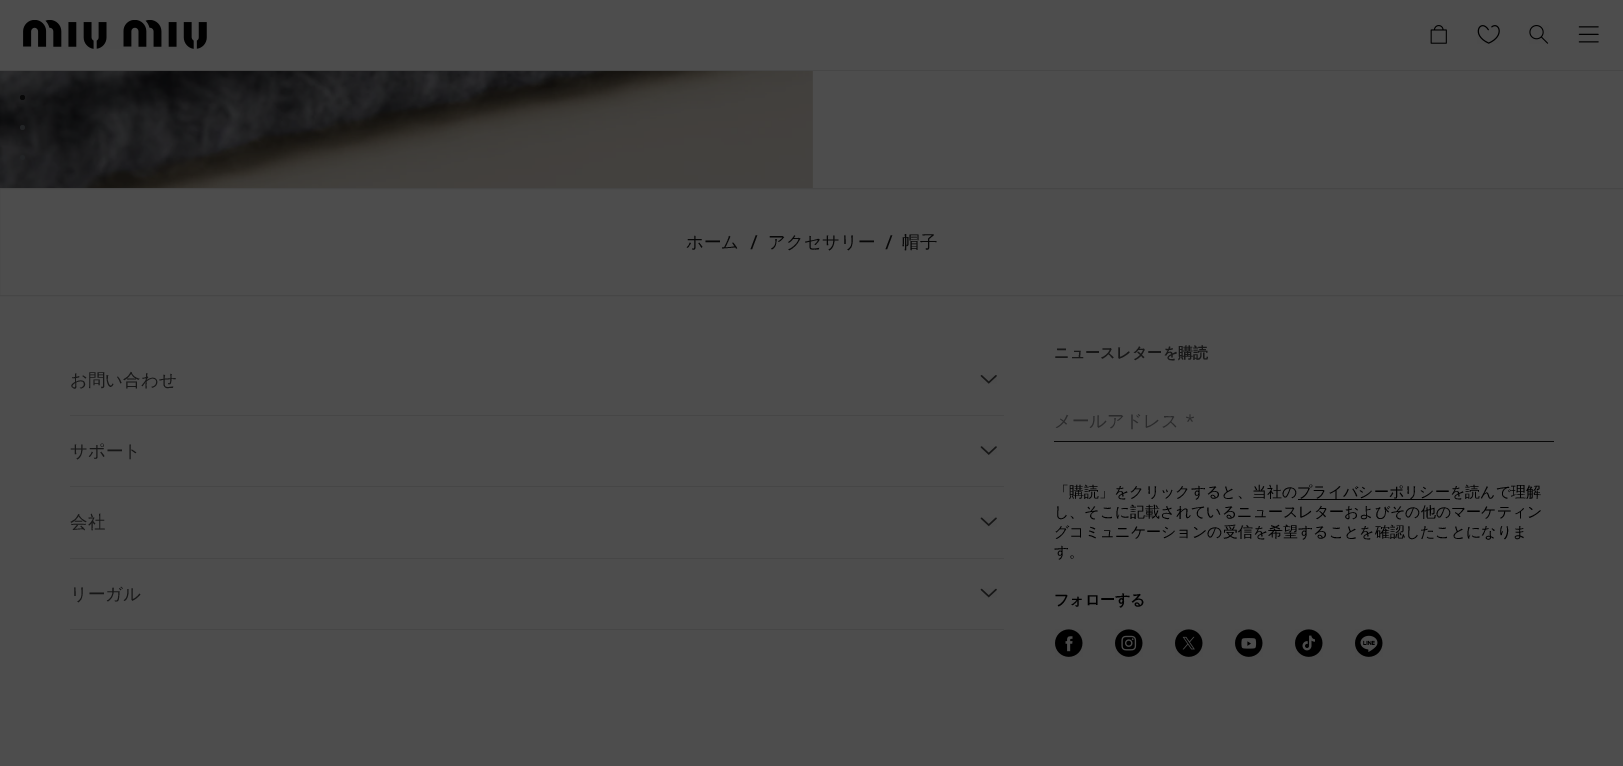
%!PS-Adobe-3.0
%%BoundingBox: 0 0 1623 766
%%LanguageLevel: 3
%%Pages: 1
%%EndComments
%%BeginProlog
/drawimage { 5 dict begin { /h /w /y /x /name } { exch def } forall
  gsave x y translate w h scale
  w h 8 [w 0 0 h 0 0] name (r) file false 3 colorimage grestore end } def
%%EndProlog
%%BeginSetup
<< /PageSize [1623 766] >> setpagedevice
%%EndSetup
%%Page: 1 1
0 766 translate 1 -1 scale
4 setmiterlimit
0.302 setgray
0 0 1623 766 rectfill
0.275 setgray
0 70 1623 1 rectfill
(images/1.raw) 23 20 184 29 drawimage
(images/2.raw) 1430 25 17 19 drawimage
(images/3.raw) 1477 25 23 19 drawimage
(images/4.raw) 1529 25 20 19 drawimage
(images/5.raw) 1578 26 21 17 drawimage
0.271 0.267 0.255 setrgbcolor
812 71 1 117 rectfill
(images/6.raw) 0 71 813 117 drawimage
0.031 setgray
newpath 22.5 97.5 2.5 0 360 arc closepath fill
0.133 0.141 0.149 setrgbcolor
newpath 22.5 127.5 2.5 0 360 arc closepath fill
newpath 22.5 157.5 2.5 0 360 arc closepath fill
0.275 setgray
-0.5 188.5 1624 107 rectstroke
70 415 934 1 rectfill
(images/7.raw) 980 375 17 9 drawimage
70 486 934 1 rectfill
(images/8.raw) 980 446 17 9 drawimage
70 558 934 1 rectfill
(images/9.raw) 980 517 17 10 drawimage
70 629 934 1 rectfill
(images/10.raw) 980 588 17 10 drawimage
0.031 setgray
1054 441 500 1 rectfill
0 setgray
1298 499 152 1 rectfill
(images/11.raw) 1055 629 28 28 drawimage
(images/12.raw) 1115 629 28 28 drawimage
(images/13.raw) 1175 629 28 28 drawimage
(images/14.raw) 1235 629 28 28 drawimage
(images/15.raw) 1295 629 28 28 drawimage
(images/16.raw) 1355 629 28 28 drawimage
/WenQuanYiZenHei-Medium [17.5 0 0 -17.5 0 0] selectfont
0.031 setgray
686 248 moveto (ホーム) show
/WorkSans-Medium [17.5 0 0 -17.5 0 0] selectfont
750 248 moveto (/) show
/WenQuanYiZenHei-Medium [17.5 0 0 -17.5 0 0] selectfont
768 248 moveto (アクセサリー) show
/WorkSans-Medium [17.5 0 0 -17.5 0 0] selectfont
885 248 moveto (/) show
/WenQuanYiZenHei-Medium [17.5 0 0 -17.5 0 0] selectfont
902 248 moveto (帽子) show
0.09 setgray
70 386 moveto (お問い合わせ) show
70 457 moveto (サポート) show
70 528 moveto (会社) show
70 600 moveto (リーガル) show
/WenQuanYiZenHei-Bold [15 0 0 -15 0 0] selectfont
1054 358 moveto 0.25 0 (ニュースレターを購読) ashow
/WenQuanYiZenHei-Medium [17.5 0 0 -17.5 0 0] selectfont
0.165 0.165 0.169 setrgbcolor
1054 427 moveto (メールアドレス) show
/WorkSans-Regular [17.5 0 0 -17.5 0 0] selectfont
1185 427 moveto (*) show
/WenQuanYiZenHei-Medium [15 0 0 -15 0 0] selectfont
0 setgray
1054 497 moveto (「購読」をクリックすると、当社の) show
1297 497 moveto (プライバシーポリシーを読んで理解) show
1054 517 moveto (し、そこに記載されているニュースレターおよびその他のマーケティン) show
1054 537 moveto (グコミュニケーションの受信を希望することを確認したことになりま) show
1054 557 moveto (す。) show
/WenQuanYiZenHei-Bold [15 0 0 -15 0 0] selectfont
1054 605 moveto (フォローする) show
showpage
%%EOF
